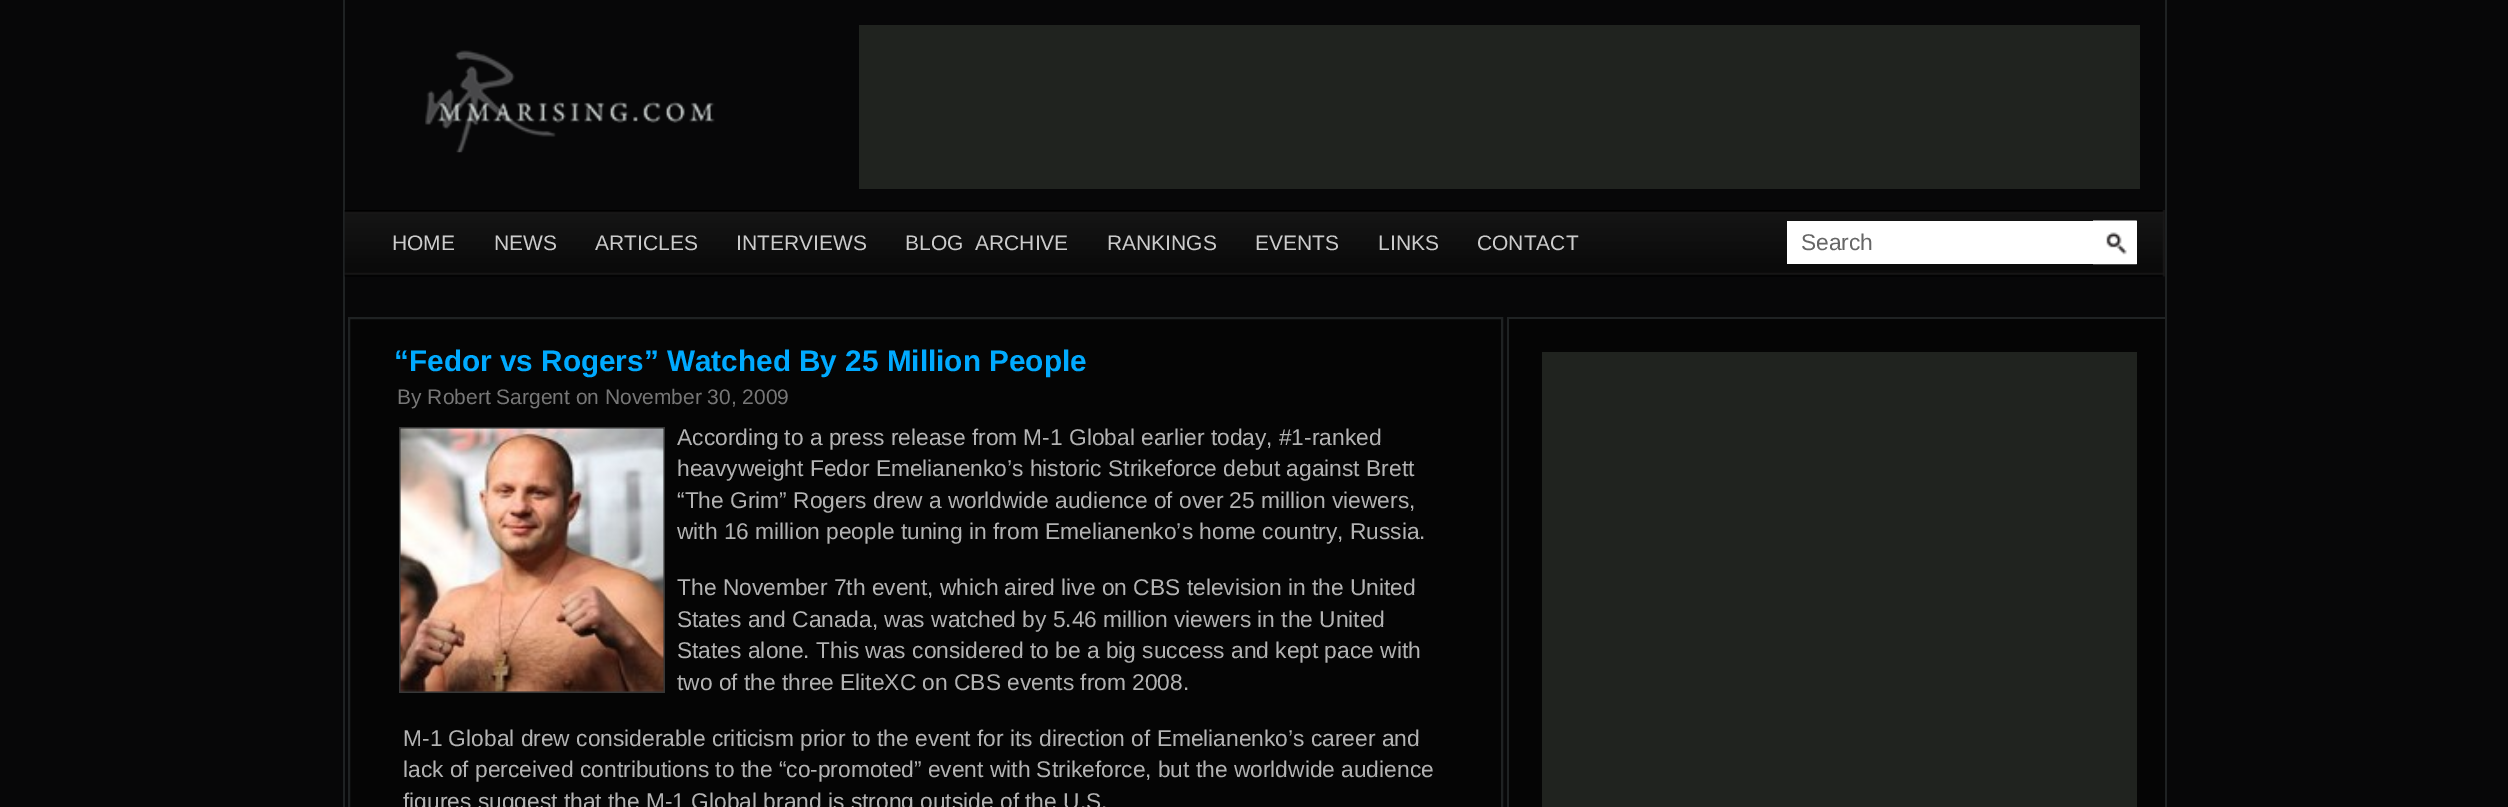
%!PS-Adobe-3.0
%%BoundingBox: 0 0 2508 807
%%LanguageLevel: 3
%%Pages: 1
%%EndComments
%%BeginProlog
/drawimage { 5 dict begin { /h /w /y /x /name } { exch def } forall
  gsave x y translate w h scale
  w h 8 [w 0 0 h 0 0] name (r) file false 3 colorimage grestore end } def
%%EndProlog
%%BeginSetup
<< /PageSize [2508 807] >> setpagedevice
%%EndSetup
%%Page: 1 1
0 807 translate 1 -1 scale
4 setmiterlimit
0.027 0.027 0.031 setrgbcolor
0 0 2508 807 rectfill
0.122 0.133 0.137 setrgbcolor
2165 0 2 807 rectfill
343 0 2 807 rectfill
(images/1.raw) 425 50 290 103 drawimage
0.125 0.137 0.122 setrgbcolor
859 25 1281 164 rectfill
(images/2.raw) 344 210 1821 67 drawimage
1 setgray
1787 221 350 43 rectfill
(images/3.raw) 2093 220 44 45 drawimage
0.02 setgray
newpath 349 318 moveto 1502 318 lineto 1502 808 lineto 349 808 lineto closepath gsave fill grestore
0.122 0.133 0.137 setrgbcolor
2 setlinewidth
stroke
(images/4.raw) 399 427 266 266 drawimage
(images/5.raw) 400 428 264 264 drawimage
0.02 setgray
1509 319 656 488 rectfill
0.122 0.133 0.137 setrgbcolor
1507 317 658 2 rectfill
1507 317 2 490 rectfill
0.125 0.137 0.122 setrgbcolor
1542 352 595 455 rectfill
/LiberationSans-Regular [21 0 0 -21 0 0] selectfont
0.8 setgray
392 250 moveto (HOME) show
494 250 moveto (NEWS) show
595 250 moveto (ARTICLES) show
736 250 moveto (INTERVIEWS) show
905 250 moveto (BLOG  ARCHIVE) show
1107 250 moveto (RANKINGS) show
1255 250 moveto (EVENTS) show
1378 250 moveto (LINKS) show
1477 250 moveto (CONTACT) show
/LiberationSans-Regular [22.75 0 0 -22.75 0 0] selectfont
0.4 setgray
1801 250 moveto (Search) show
/LiberationSans-Bold [29.75 0 0 -29.75 0 0] selectfont
0 0.667 1 setrgbcolor
394 371 moveto (“Fedor vs Rogers” Watched By 25 Million People) show
/LiberationSans-Regular [21 0 0 -21 0 0] selectfont
0.467 setgray
397 404 moveto (By Robert Sargent on November 30, 2009) show
/LiberationSans-Regular [22.75 0 0 -22.75 0 0] selectfont
0.702 setgray
677 445 moveto (According to a press release from M-1 Global earlier today, #1-ranked) show
677 476 moveto (heavyweight Fedor Emelianenko’s historic Strikeforce debut against Brett) show
677 508 moveto (“The Grim” Rogers drew a worldwide audience of over 25 million viewers,) show
677 539 moveto (with 16 million people tuning in from Emelianenko’s home country, Russia.) show
677 595 moveto (The November 7th event, which aired live on CBS television in the United) show
677 627 moveto (States and Canada, was watched by 5.46 million viewers in the United) show
677 658 moveto (States alone. This was considered to be a big success and kept pace with) show
677 690 moveto (two of the three EliteXC on CBS events from 2008.) show
403 746 moveto (M-1 Global drew considerable criticism prior to the event for its direction of Emelianenko’s career and) show
403 777 moveto (lack of perceived contributions to the “co-promoted” event with Strikeforce, but the worldwide audience) show
403 809 moveto (figures suggest that the M-1 Global brand is strong outside of the U.S.) show
showpage
%%EOF
